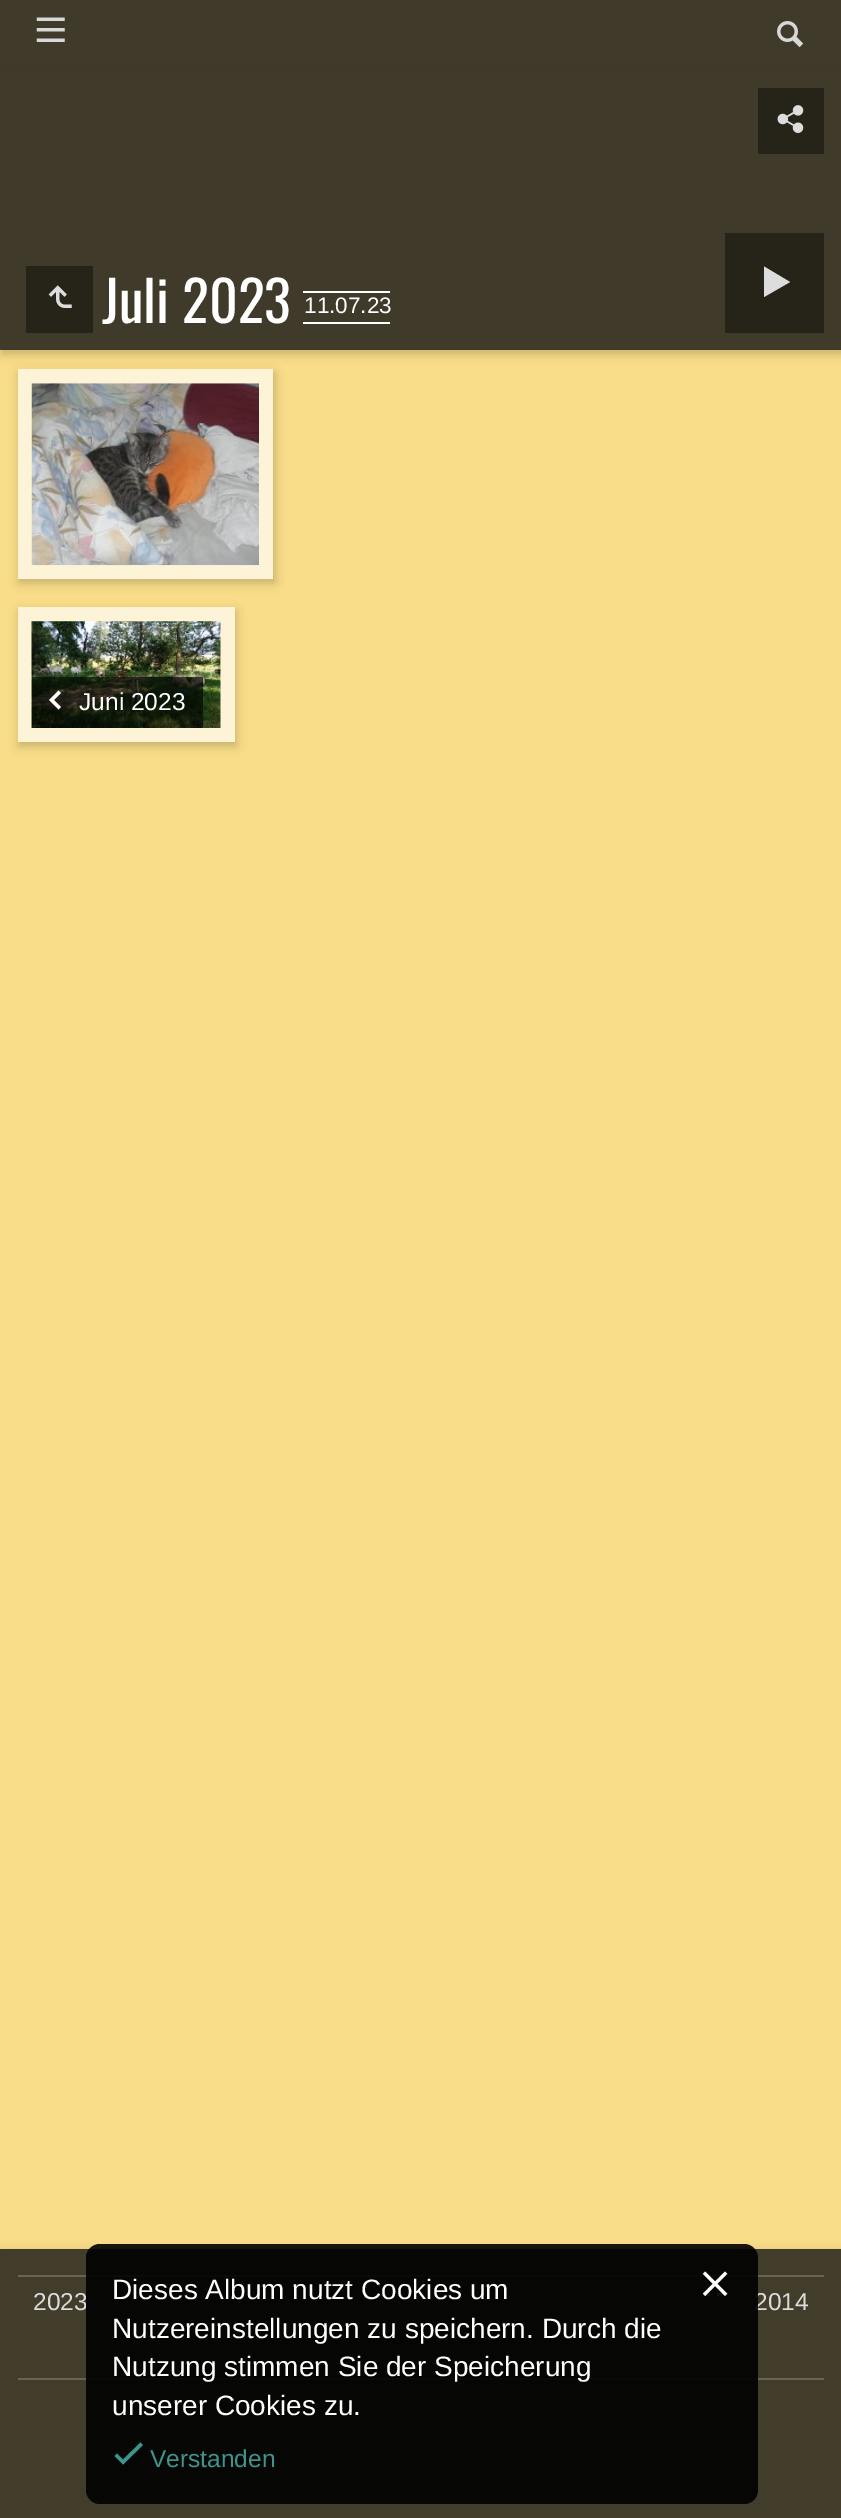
%!PS-Adobe-3.0
%%BoundingBox: 0 0 841 2518
%%LanguageLevel: 3
%%Pages: 1
%%EndComments
%%BeginProlog
/setalpha { dup .setfillconstantalpha .setstrokeconstantalpha } def
/rrect { 5 dict begin { /r /h /w /y /x } { exch def } forall
  x r add y moveto x w add y 2 copy h add r arct x w add y h add x 1 index r arct
  x y h add x y r arct x y 2 copy exch w add exch r arct closepath end } def
/softshadow { 12 dict begin { /a /b /q /h /w /y /x } { exch def } forall gsave /was 0 def
  9 -2 -9 { dup b mul 4 div /e exch def 1 sub .425 mul 2.718 exch exp 1 add a .99 .min exch div /now exch def
    1 1 now sub 1 was sub div sub setalpha /was now def
    w h .min e 2 mul add 0 gt { x e sub y e sub w e 2 mul add h e 2 mul add
      q e add b .6 mul add w h .min 2 div e add .min 0 .max rrect fill } if } for grestore end } def
/drawimage { 5 dict begin { /h /w /y /x /name } { exch def } forall
  gsave x y translate w h scale
  w h 8 [w 0 0 h 0 0] name (r) file false 3 colorimage grestore end } def
%%EndProlog
%%BeginSetup
<< /PageSize [841 2518] /PageUsesTransparency true >> setpagedevice
%%EndSetup
%%Page: 1 1
0 .pushpdf14devicefilter
0 2518 translate 1 -1 scale
4 setmiterlimit
0.976 0.867 0.533 setrgbcolor
0 0 841 2518 rectfill
0 setgray
2 74 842 280 0 5 0.21 softshadow
0.8 setalpha
0.067 setgray
0 0 841 70 rectfill
1 setalpha
(images/1.raw) 36 17 29 25 drawimage
(images/2.raw) 777 21 27 27 drawimage
0.247 0.227 0.161 setrgbcolor
0 70 841 280 rectfill
0.149 0.137 0.098 setrgbcolor
26 266 67 67 rectfill
(images/3.raw) 48 285 24 23 drawimage
1 setgray
303 291 87 2 rectfill
303 322 87 2 rectfill
0.149 0.137 0.098 setrgbcolor
758 88 66 66 rectfill
(images/4.raw) 777 105 27 28 drawimage
725 233 99 100 rectfill
0.867 setgray
newpath 764 266.5 moveto 790 282 lineto 764 297 lineto closepath fill
gsave
newpath 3 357 moveto 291 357 lineto 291 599 lineto 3 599 lineto closepath 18 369 moveto 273 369 lineto 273 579 lineto 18 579 lineto closepath eoclip newpath
0 setgray
19 373 256 210 0 5 0.21 softshadow
grestore
0.67 setalpha
1 setgray
18 369 255 210 rectfill
1 setalpha
(images/5.raw) 31 383 228 183 drawimage
gsave
newpath 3 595 moveto 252 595 lineto 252 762 lineto 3 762 lineto closepath 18 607 moveto 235 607 lineto 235 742 lineto 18 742 lineto closepath eoclip newpath
0 setgray
19 611 217 135 0 5 0.21 softshadow
grestore
0.67 setalpha
18 607 217 135 rectfill
1 setalpha
(images/6.raw) 31 621 190 107 drawimage
0.6 setalpha
0 setgray
32 677 171 51 rectfill
1 setalpha
1 setgray
newpath 54 700 moveto 61 707 lineto 58.5 709.5 lineto 49 700 lineto 58.5 690.5 lineto 61 693 lineto closepath fill
0 setgray
2 2252 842 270 0 5 0.21 softshadow
0.259 0.235 0.169 setrgbcolor
0 2249 841 269 rectfill
0.408 0.388 0.333 setrgbcolor
18 2275 806 2 rectfill
18 2378 806 2 rectfill
0.259 0.243 0.188 setrgbcolor
2 setlinewidth
533 2399 80 41 4 rrect stroke
/Oswald-Regular [56 0 0 -56 0 0] selectfont
1 setgray
102 323 moveto (Juli 2023) show
/LiberationSans-Regular [22.5 0 0 -22.5 0 0] selectfont
304 313 moveto (11.07.23) show
/LiberationSans-Regular [24.5 0 0 -24.5 0 0] selectfont
79 710 moveto (Juni 2023) show
0.859 setgray
33 2310 moveto (2023) show
754 2310 moveto (2014) show
0.9 setalpha
0 setgray
86 2244 672 260 14 rrect fill
1 setalpha
(images/7.raw) 702 2271 26 25 drawimage
0.235 0.58 0.549 setrgbcolor
150 2467 moveto (Verstanden) show
newpath 123 2459.5 moveto 117 2453.5 lineto 114.5 2456 lineto 123 2464.5 lineto 143 2445 lineto 140.5 2442.5 lineto closepath fill
/LiberationSans-Regular [28 0 0 -28 0 0] selectfont
1 setgray
112 2415 moveto (unserer Cookies zu.) show
112 2376 moveto (Nutzung stimmen Sie der Speicherung) show
112 2338 moveto (Nutzereinstellungen zu speichern. Durch die) show
112 2299 moveto (Dieses Album nutzt Cookies um) show
.poppdf14devicefilter showpage
%%EOF
